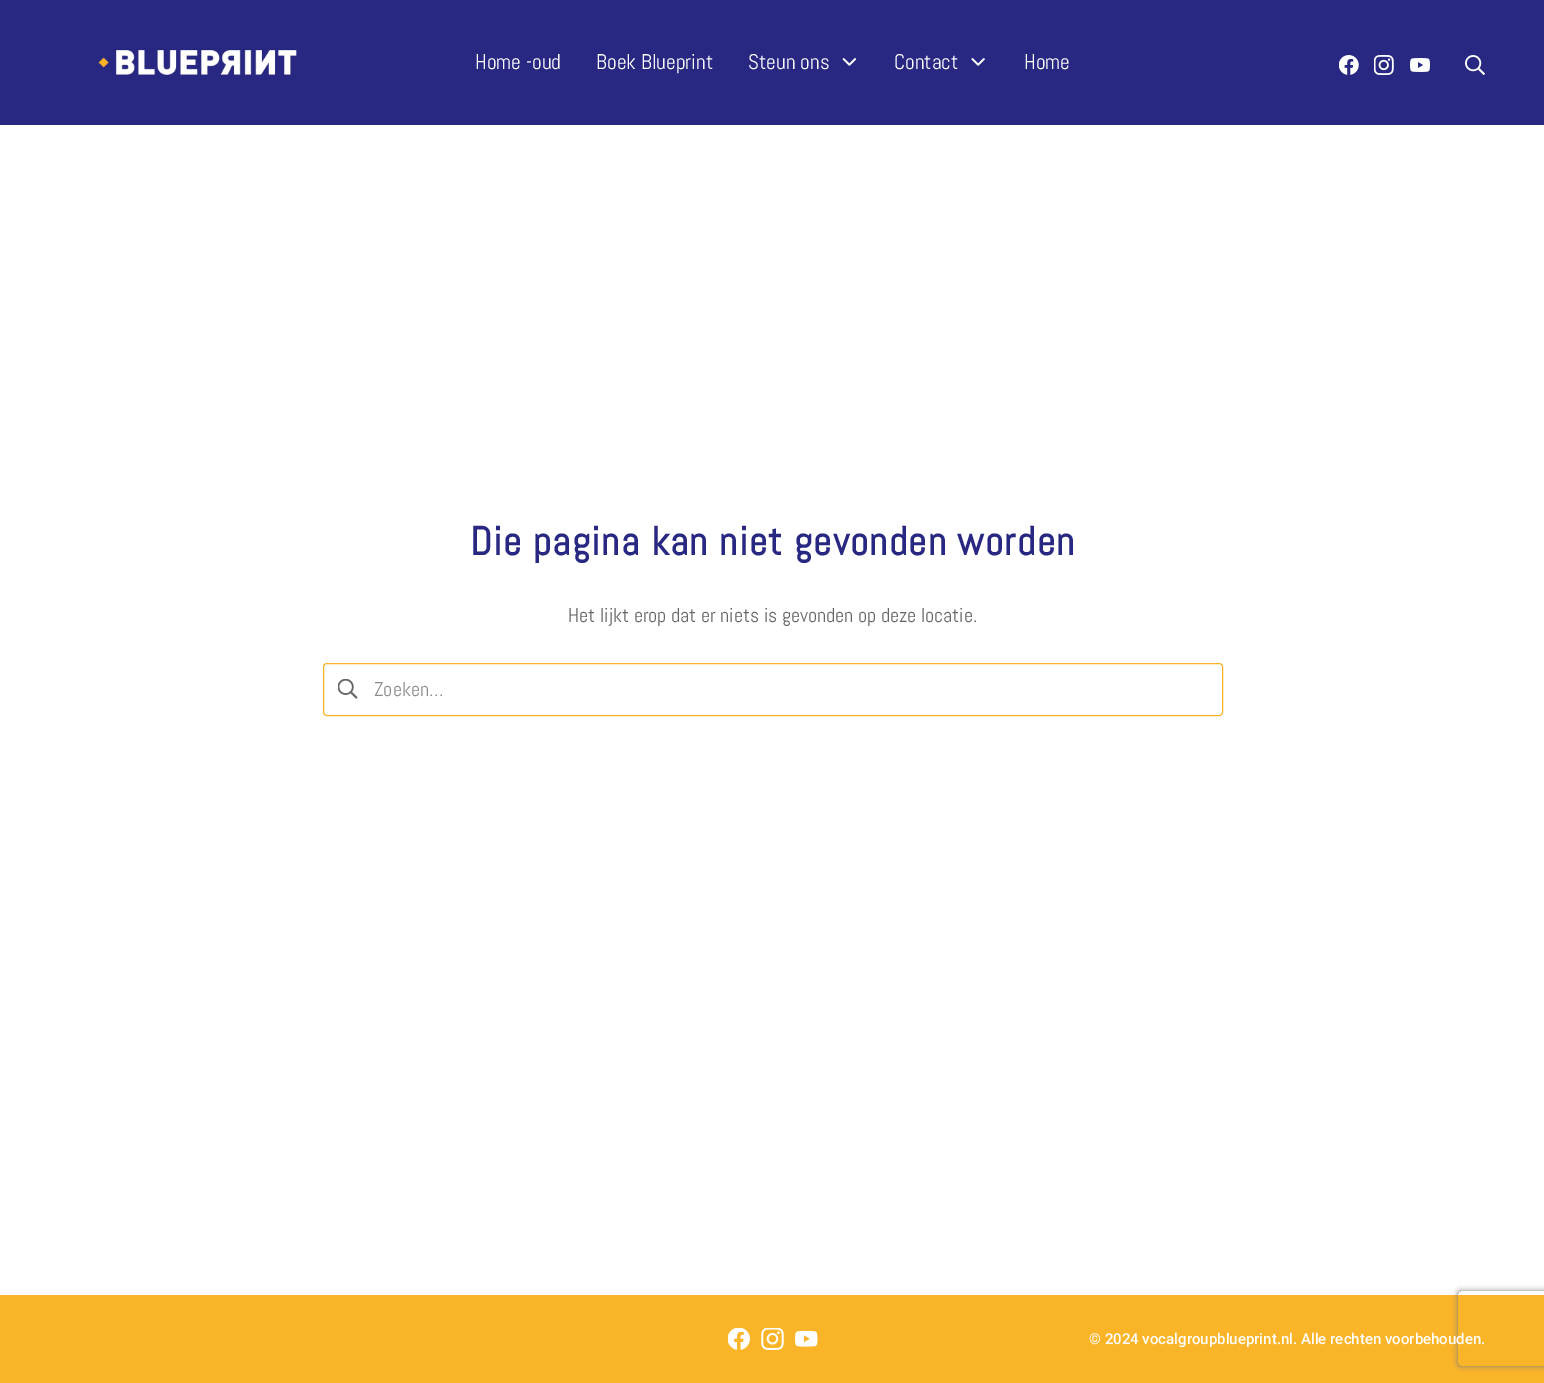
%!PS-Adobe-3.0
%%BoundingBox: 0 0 1544 1383
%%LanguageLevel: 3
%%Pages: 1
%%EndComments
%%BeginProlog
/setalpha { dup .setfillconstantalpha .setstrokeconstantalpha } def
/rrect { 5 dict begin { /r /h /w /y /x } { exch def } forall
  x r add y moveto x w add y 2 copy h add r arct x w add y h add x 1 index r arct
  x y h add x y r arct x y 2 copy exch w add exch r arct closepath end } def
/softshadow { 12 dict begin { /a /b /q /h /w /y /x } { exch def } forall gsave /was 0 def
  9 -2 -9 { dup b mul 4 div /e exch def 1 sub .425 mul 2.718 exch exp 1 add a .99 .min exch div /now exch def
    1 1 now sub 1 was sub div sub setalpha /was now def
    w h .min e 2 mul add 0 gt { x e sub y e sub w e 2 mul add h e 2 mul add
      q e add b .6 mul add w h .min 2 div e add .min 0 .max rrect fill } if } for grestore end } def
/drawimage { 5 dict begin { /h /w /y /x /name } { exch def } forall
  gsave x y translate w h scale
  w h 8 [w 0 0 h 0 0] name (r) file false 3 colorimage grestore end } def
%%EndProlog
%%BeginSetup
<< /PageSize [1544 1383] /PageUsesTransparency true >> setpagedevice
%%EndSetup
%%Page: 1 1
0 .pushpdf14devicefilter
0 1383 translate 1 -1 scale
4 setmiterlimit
1 setgray
0 0 1544 1383 rectfill
0.157 0.157 0.51 setrgbcolor
0 0 1544 125 rectfill
(images/1.raw) 98 48 199 28 drawimage
(images/2.raw) 842 58 15 8 drawimage
(images/3.raw) 971 58 14 8 drawimage
(images/4.raw) 1339 55 20 20 drawimage
(images/5.raw) 1374 55 20 20 drawimage
(images/6.raw) 1410 58 20 14 drawimage
(images/7.raw) 1465 55 20 20 drawimage
0.98 0.706 0.157 setrgbcolor
323.5 663.5 899 52 3.5 rrect stroke
(images/8.raw) 338 679 20 20 drawimage
0 1295 1544 88 rectfill
(images/9.raw) 728 1328 22 22 drawimage
(images/10.raw) 761 1328 23 22 drawimage
(images/11.raw) 795 1330 23 17 drawimage
gsave
newpath 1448 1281 moveto 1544 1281 lineto 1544 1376 lineto 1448 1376 lineto closepath 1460.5 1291 moveto 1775.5 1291 lineto 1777 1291 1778 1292 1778 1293.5 curveto 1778 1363.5 lineto 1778 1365 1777 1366 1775.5 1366 curveto 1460.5 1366 lineto 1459 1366 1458 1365 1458 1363.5 curveto 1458 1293.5 lineto 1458 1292 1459 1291 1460.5 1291 curveto closepath eoclip newpath
0.502 setgray
1458 1291 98 75 2.5 3 1 softshadow
grestore
/Abel-Regular [21.25 0 0 -21.25 0 0] selectfont
1 setgray
475 69 moveto (Home -oud) show
596 69 moveto (Boek Blueprint) show
748 69 moveto (Steun ons) show
894 69 moveto (Contact) show
1024 69 moveto (Home) show
/Abel-Bold [40 0 0 -40 0 0] selectfont
0.157 0.157 0.51 setrgbcolor
470 555 moveto 1.25 0 (Die pagina kan niet gevonden worden) ashow
/Abel-Regular [20 0 0 -20 0 0] selectfont
0.4 setgray
568 622 moveto (Het lijkt erop dat er niets is gevonden op deze locatie.) show
0.549 setgray
374 696 moveto (Zoeken…) show
/Roboto-Medium [15 0 0 -15 0 0] selectfont
1 setgray
1089 1344 moveto (© 2024 vocalgroupblueprint.nl. Alle rechten voorbehouden.) show
.poppdf14devicefilter showpage
%%EOF
